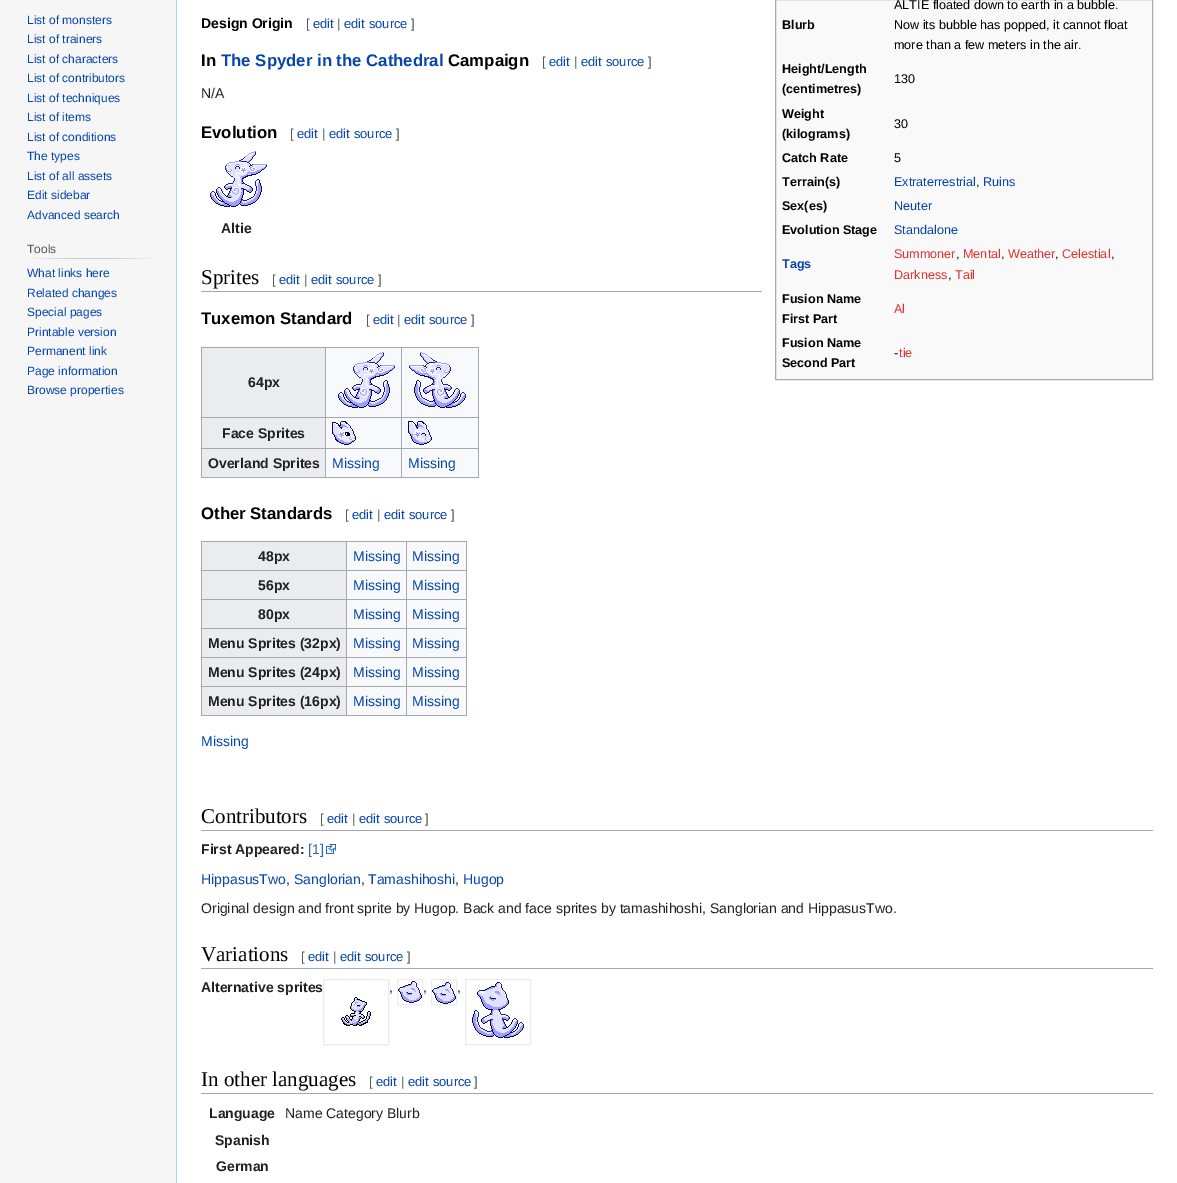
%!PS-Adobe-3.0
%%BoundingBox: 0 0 1177 1183
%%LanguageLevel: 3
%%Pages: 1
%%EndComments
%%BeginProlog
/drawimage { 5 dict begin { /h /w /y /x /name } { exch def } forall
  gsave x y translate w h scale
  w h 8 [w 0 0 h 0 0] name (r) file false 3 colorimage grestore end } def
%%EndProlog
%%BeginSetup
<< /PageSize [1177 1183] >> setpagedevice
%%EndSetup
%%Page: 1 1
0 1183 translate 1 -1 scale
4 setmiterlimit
0.965 setgray
0 0 1177 1183 rectfill
gsave newpath 27 258 moveto 158 258 lineto 158 259 lineto 27 259 lineto closepath clip newpath
<< /ShadingType 2 /ColorSpace /DeviceRGB /Coords [27 259 158 259] /Extend [true true] /Function << /FunctionType 3 /Domain [0 1] /Functions [<< /FunctionType 2 /Domain [0 1] /C0 [0.965 0.965 0.965] /C1 [0.784 0.8 0.82] /N 1 >> << /FunctionType 2 /Domain [0 1] /C0 [0.784 0.8 0.82] /C1 [0.784 0.8 0.82] /N 1 >> << /FunctionType 2 /Domain [0 1] /C0 [0.784 0.8 0.82] /C1 [0.965 0.965 0.965] /N 1 >>] /Bounds [0.33 0.66] /Encode [0 1 0 1 0 1] >> >> shfill grestore
1 setgray
177 0 1000 1183 rectfill
0.655 0.843 0.976 setrgbcolor
176 0 1 1183 rectfill
0.976 setgray
newpath 775.5 -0.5 moveto 1152.5 -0.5 lineto 1152.5 379.5 lineto 775.5 379.5 lineto closepath gsave fill grestore
0.667 setgray
stroke
(images/1.raw) 210 151 57 56 drawimage
0.635 0.663 0.694 setrgbcolor
201 291 561 1 rectfill
0.973 0.976 0.98 setrgbcolor
326 348 152 129 rectfill
0.635 0.663 0.694 setrgbcolor
201 347 278 1 rectfill
478 347 1 131 rectfill
201 477 278 1 rectfill
201 347 1 131 rectfill
0.918 0.925 0.941 setrgbcolor
202 348 123 69 rectfill
0.635 0.663 0.694 setrgbcolor
401 417 78 1 rectfill
401 448 78 1 rectfill
401 448 1 30 rectfill
325 448 77 1 rectfill
401 417 1 32 rectfill
325 417 77 1 rectfill
325 448 1 30 rectfill
201 448 125 1 rectfill
325 417 1 32 rectfill
201 417 125 1 rectfill
325 347 1 71 rectfill
(images/2.raw) 338 352 57 56 drawimage
401 347 1 71 rectfill
(images/3.raw) 409 352 57 56 drawimage
0.918 0.925 0.941 setrgbcolor
202 418 123 30 rectfill
(images/4.raw) 332 421 24 24 drawimage
(images/5.raw) 408 421 24 24 drawimage
202 449 123 28 rectfill
0.973 0.976 0.98 setrgbcolor
347 542 119 173 rectfill
0.635 0.663 0.694 setrgbcolor
201 541 266 1 rectfill
466 541 1 175 rectfill
201 715 266 1 rectfill
201 541 1 175 rectfill
0.918 0.925 0.941 setrgbcolor
202 542 144 28 rectfill
0.635 0.663 0.694 setrgbcolor
406 570 61 1 rectfill
406 599 61 1 rectfill
406 628 61 1 rectfill
406 657 61 1 rectfill
406 686 61 1 rectfill
406 686 1 30 rectfill
346 686 61 1 rectfill
406 657 1 30 rectfill
346 657 61 1 rectfill
406 628 1 30 rectfill
346 628 61 1 rectfill
406 599 1 30 rectfill
346 599 61 1 rectfill
406 570 1 30 rectfill
346 570 61 1 rectfill
346 686 1 30 rectfill
201 686 146 1 rectfill
346 657 1 30 rectfill
201 657 146 1 rectfill
346 628 1 30 rectfill
201 628 146 1 rectfill
346 599 1 30 rectfill
201 599 146 1 rectfill
346 570 1 30 rectfill
201 570 146 1 rectfill
346 541 1 30 rectfill
406 541 1 30 rectfill
0.918 0.925 0.941 setrgbcolor
202 571 144 28 rectfill
202 600 144 28 rectfill
202 629 144 28 rectfill
202 658 144 28 rectfill
202 687 144 28 rectfill
0.635 0.663 0.694 setrgbcolor
201 830 952 1 rectfill
(images/6.raw) 326 844 10 10 drawimage
201 968 952 1 rectfill
0.918 0.925 0.941 setrgbcolor
323.5 979.5 65 65 rectstroke
397.5 979.5 25 25 rectstroke
431.5 979.5 25 25 rectstroke
465.5 979.5 65 65 rectstroke
(images/7.raw) 398 981 24 22 drawimage
(images/7.raw) 432 982 24 22 drawimage
(images/8.raw) 472 982 52 56 drawimage
(images/9.raw) 341 997 30 29 drawimage
0.635 0.663 0.694 setrgbcolor
201 1093 952 1 rectfill
/LiberationSans-Regular [12 0 0 -12 0 0] selectfont
0.024 0.271 0.678 setrgbcolor
27 24 moveto (List of monsters) show
27 43 moveto (List of trainers) show
27 63 moveto (List of characters) show
27 82 moveto (List of contributors) show
27 102 moveto (List of techniques) show
27 121 moveto (List of items) show
27 141 moveto (List of conditions) show
27 160 moveto (The types) show
27 180 moveto (List of all assets) show
27 199 moveto (Edit sidebar) show
27 219 moveto (Advanced search) show
0.329 0.349 0.365 setrgbcolor
27 253 moveto (Tools) show
0.024 0.271 0.678 setrgbcolor
27 277 moveto (What links here) show
27 297 moveto (Related changes) show
27 316 moveto (Special pages) show
27 336 moveto (Printable version) show
27 355 moveto (Permanent link) show
27 375 moveto (Page information) show
27 394 moveto (Browse properties) show
/LiberationSans-Bold [14 0 0 -14 0 0] selectfont
0 setgray
201 28 moveto (Design Origin) show
/LiberationSans-Regular [13 0 0 -13 0 0] selectfont
0.329 0.349 0.365 setrgbcolor
306 28 moveto ([) show
0.024 0.271 0.678 setrgbcolor
313 28 moveto (edit) show
0.329 0.349 0.365 setrgbcolor
337 28 moveto (|) show
0.024 0.271 0.678 setrgbcolor
344 28 moveto (edit source) show
0.329 0.349 0.365 setrgbcolor
411 28 moveto (]) show
/LiberationSans-Bold [12.6 0 0 -12.6 0 0] selectfont
0 setgray
782 29 moveto (Blurb) show
/LiberationSans-Regular [12.6 0 0 -12.6 0 0] selectfont
894 9 moveto (ALTIE floated down to earth in a bubble.) show
894 29 moveto (Now its bubble has popped, it cannot float) show
894 49 moveto (more than a few meters in the air.) show
/LiberationSans-Bold [12.6 0 0 -12.6 0 0] selectfont
782 73 moveto (Height/Length) show
782 93 moveto (\(centimetres\)) show
/LiberationSans-Regular [12.6 0 0 -12.6 0 0] selectfont
894 83 moveto (130) show
/LiberationSans-Bold [12.6 0 0 -12.6 0 0] selectfont
782 118 moveto (Weight) show
782 138 moveto (\(kilograms\)) show
/LiberationSans-Regular [12.6 0 0 -12.6 0 0] selectfont
894 128 moveto (30) show
/LiberationSans-Bold [12.6 0 0 -12.6 0 0] selectfont
782 162 moveto (Catch Rate) show
/LiberationSans-Regular [12.6 0 0 -12.6 0 0] selectfont
894 162 moveto (5) show
/LiberationSans-Bold [12.6 0 0 -12.6 0 0] selectfont
782 186 moveto (Terrain\(s\)) show
/LiberationSans-Regular [12.6 0 0 -12.6 0 0] selectfont
0.024 0.271 0.678 setrgbcolor
894 186 moveto (Extraterrestrial) show
0 setgray
976 186 moveto (,) show
0.024 0.271 0.678 setrgbcolor
983 186 moveto (Ruins) show
/LiberationSans-Bold [12.6 0 0 -12.6 0 0] selectfont
0 setgray
782 210 moveto (Sex\(es\)) show
/LiberationSans-Regular [12.6 0 0 -12.6 0 0] selectfont
0.024 0.271 0.678 setrgbcolor
894 210 moveto (Neuter) show
/LiberationSans-Bold [12.6 0 0 -12.6 0 0] selectfont
0 setgray
782 234 moveto (Evolution Stage) show
/LiberationSans-Regular [12.6 0 0 -12.6 0 0] selectfont
0.024 0.271 0.678 setrgbcolor
894 234 moveto (Standalone) show
/LiberationSans-Bold [12.6 0 0 -12.6 0 0] selectfont
782 268 moveto (Tags) show
/LiberationSans-Regular [12.6 0 0 -12.6 0 0] selectfont
0.867 0.2 0.2 setrgbcolor
894 258 moveto (Summoner) show
0 setgray
956 258 moveto (,) show
0.867 0.2 0.2 setrgbcolor
963 258 moveto (Mental) show
0 setgray
1001 258 moveto (,) show
0.867 0.2 0.2 setrgbcolor
1008 258 moveto (Weather) show
0 setgray
1055 258 moveto (,) show
0.867 0.2 0.2 setrgbcolor
1062 258 moveto (Celestial) show
0 setgray
1111 258 moveto (,) show
0.867 0.2 0.2 setrgbcolor
894 279 moveto (Darkness) show
0 setgray
948 279 moveto (,) show
0.867 0.2 0.2 setrgbcolor
955 279 moveto (Tail) show
/LiberationSans-Bold [12.6 0 0 -12.6 0 0] selectfont
0 setgray
782 303 moveto (Fusion Name) show
782 323 moveto (First Part) show
/LiberationSans-Regular [12.6 0 0 -12.6 0 0] selectfont
0.867 0.2 0.2 setrgbcolor
894 313 moveto (Al) show
/LiberationSans-Bold [12.6 0 0 -12.6 0 0] selectfont
0 setgray
782 347 moveto (Fusion Name) show
782 367 moveto (Second Part) show
/LiberationSans-Regular [12.6 0 0 -12.6 0 0] selectfont
894 357 moveto (-) show
0.867 0.2 0.2 setrgbcolor
899 357 moveto (tie) show
/LiberationSans-Bold [16.75 0 0 -16.75 0 0] selectfont
0 setgray
201 66 moveto (In) show
0.024 0.271 0.678 setrgbcolor
221 66 moveto (The Spyder in the Cathedral) show
0 setgray
448 66 moveto (Campaign) show
/LiberationSans-Regular [13 0 0 -13 0 0] selectfont
0.329 0.349 0.365 setrgbcolor
542 66 moveto ([) show
0.024 0.271 0.678 setrgbcolor
549 66 moveto (edit) show
0.329 0.349 0.365 setrgbcolor
574 66 moveto (|) show
0.024 0.271 0.678 setrgbcolor
581 66 moveto (edit source) show
0.329 0.349 0.365 setrgbcolor
648 66 moveto (]) show
/LiberationSans-Regular [14 0 0 -14 0 0] selectfont
0.125 0.129 0.133 setrgbcolor
201 98 moveto (N/A) show
/LiberationSans-Bold [16.75 0 0 -16.75 0 0] selectfont
0 setgray
201 138 moveto (Evolution) show
/LiberationSans-Regular [13 0 0 -13 0 0] selectfont
0.329 0.349 0.365 setrgbcolor
290 138 moveto ([) show
0.024 0.271 0.678 setrgbcolor
297 138 moveto (edit) show
0.329 0.349 0.365 setrgbcolor
322 138 moveto (|) show
0.024 0.271 0.678 setrgbcolor
329 138 moveto (edit source) show
0.329 0.349 0.365 setrgbcolor
396 138 moveto (]) show
/LiberationSans-Bold [14 0 0 -14 0 0] selectfont
0.125 0.129 0.133 setrgbcolor
221 233 moveto (Altie) show
/LiberationSerif-Regular [21 0 0 -21 0 0] selectfont
0 setgray
201 284 moveto (Sprites) show
/LiberationSans-Regular [13 0 0 -13 0 0] selectfont
0.329 0.349 0.365 setrgbcolor
272 284 moveto ([) show
0.024 0.271 0.678 setrgbcolor
279 284 moveto (edit) show
0.329 0.349 0.365 setrgbcolor
304 284 moveto (|) show
0.024 0.271 0.678 setrgbcolor
311 284 moveto (edit source) show
0.329 0.349 0.365 setrgbcolor
378 284 moveto (]) show
/LiberationSans-Bold [16.75 0 0 -16.75 0 0] selectfont
0 setgray
201 324 moveto (Tuxemon Standard) show
/LiberationSans-Regular [13 0 0 -13 0 0] selectfont
0.329 0.349 0.365 setrgbcolor
366 324 moveto ([) show
0.024 0.271 0.678 setrgbcolor
373 324 moveto (edit) show
0.329 0.349 0.365 setrgbcolor
397 324 moveto (|) show
0.024 0.271 0.678 setrgbcolor
404 324 moveto (edit source) show
0.329 0.349 0.365 setrgbcolor
471 324 moveto (]) show
/LiberationSans-Bold [14 0 0 -14 0 0] selectfont
0.125 0.129 0.133 setrgbcolor
248 387 moveto (64px) show
222 438 moveto (Face Sprites) show
208 468 moveto (Overland Sprites) show
/LiberationSans-Regular [14 0 0 -14 0 0] selectfont
0.024 0.271 0.678 setrgbcolor
332 468 moveto (Missing) show
408 468 moveto (Missing) show
/LiberationSans-Bold [16.75 0 0 -16.75 0 0] selectfont
0 setgray
201 519 moveto (Other Standards) show
/LiberationSans-Regular [13 0 0 -13 0 0] selectfont
0.329 0.349 0.365 setrgbcolor
345 519 moveto ([) show
0.024 0.271 0.678 setrgbcolor
352 519 moveto (edit) show
0.329 0.349 0.365 setrgbcolor
377 519 moveto (|) show
0.024 0.271 0.678 setrgbcolor
384 519 moveto (edit source) show
0.329 0.349 0.365 setrgbcolor
451 519 moveto (]) show
/LiberationSans-Bold [14 0 0 -14 0 0] selectfont
0.125 0.129 0.133 setrgbcolor
258 561 moveto (48px) show
/LiberationSans-Regular [14 0 0 -14 0 0] selectfont
0.024 0.271 0.678 setrgbcolor
353 561 moveto (Missing) show
412 561 moveto (Missing) show
/LiberationSans-Bold [14 0 0 -14 0 0] selectfont
0.125 0.129 0.133 setrgbcolor
258 590 moveto (56px) show
/LiberationSans-Regular [14 0 0 -14 0 0] selectfont
0.024 0.271 0.678 setrgbcolor
353 590 moveto (Missing) show
412 590 moveto (Missing) show
/LiberationSans-Bold [14 0 0 -14 0 0] selectfont
0.125 0.129 0.133 setrgbcolor
258 619 moveto (80px) show
/LiberationSans-Regular [14 0 0 -14 0 0] selectfont
0.024 0.271 0.678 setrgbcolor
353 619 moveto (Missing) show
412 619 moveto (Missing) show
/LiberationSans-Bold [14 0 0 -14 0 0] selectfont
0.125 0.129 0.133 setrgbcolor
208 648 moveto (Menu Sprites \(32px\)) show
/LiberationSans-Regular [14 0 0 -14 0 0] selectfont
0.024 0.271 0.678 setrgbcolor
353 648 moveto (Missing) show
412 648 moveto (Missing) show
/LiberationSans-Bold [14 0 0 -14 0 0] selectfont
0.125 0.129 0.133 setrgbcolor
208 677 moveto (Menu Sprites \(24px\)) show
/LiberationSans-Regular [14 0 0 -14 0 0] selectfont
0.024 0.271 0.678 setrgbcolor
353 677 moveto (Missing) show
412 677 moveto (Missing) show
/LiberationSans-Bold [14 0 0 -14 0 0] selectfont
0.125 0.129 0.133 setrgbcolor
208 706 moveto (Menu Sprites \(16px\)) show
/LiberationSans-Regular [14 0 0 -14 0 0] selectfont
0.024 0.271 0.678 setrgbcolor
353 706 moveto (Missing) show
412 706 moveto (Missing) show
201 746 moveto (Missing) show
/LiberationSerif-Regular [21 0 0 -21 0 0] selectfont
0 setgray
201 823 moveto (Contributors) show
/LiberationSans-Regular [13 0 0 -13 0 0] selectfont
0.329 0.349 0.365 setrgbcolor
320 823 moveto ([) show
0.024 0.271 0.678 setrgbcolor
327 823 moveto (edit) show
0.329 0.349 0.365 setrgbcolor
352 823 moveto (|) show
0.024 0.271 0.678 setrgbcolor
359 823 moveto (edit source) show
0.329 0.349 0.365 setrgbcolor
425 823 moveto (]) show
/LiberationSans-Bold [14 0 0 -14 0 0] selectfont
0.125 0.129 0.133 setrgbcolor
201 854 moveto (First Appeared:) show
/LiberationSans-Regular [14 0 0 -14 0 0] selectfont
0.2 0.4 0.733 setrgbcolor
308 854 moveto ([1]) show
0.024 0.271 0.678 setrgbcolor
201 884 moveto (HippasusTwo) show
0.125 0.129 0.133 setrgbcolor
286 884 moveto (,) show
0.024 0.271 0.678 setrgbcolor
294 884 moveto (Sanglorian) show
0.125 0.129 0.133 setrgbcolor
361 884 moveto (,) show
0.024 0.271 0.678 setrgbcolor
368 884 moveto (Tamashihoshi) show
0.125 0.129 0.133 setrgbcolor
455 884 moveto (,) show
0.024 0.271 0.678 setrgbcolor
463 884 moveto (Hugop) show
0.125 0.129 0.133 setrgbcolor
201 913 moveto (Original design and front sprite by Hugop. Back and face sprites by tamashihoshi, Sanglorian and HippasusTwo.) show
/LiberationSerif-Regular [21 0 0 -21 0 0] selectfont
0 setgray
201 961 moveto (Variations) show
/LiberationSans-Regular [13 0 0 -13 0 0] selectfont
0.329 0.349 0.365 setrgbcolor
301 961 moveto ([) show
0.024 0.271 0.678 setrgbcolor
308 961 moveto (edit) show
0.329 0.349 0.365 setrgbcolor
333 961 moveto (|) show
0.024 0.271 0.678 setrgbcolor
340 961 moveto (edit source) show
0.329 0.349 0.365 setrgbcolor
407 961 moveto (]) show
/LiberationSans-Bold [14 0 0 -14 0 0] selectfont
0.125 0.129 0.133 setrgbcolor
201 992 moveto (Alternative sprites) show
/LiberationSans-Regular [14 0 0 -14 0 0] selectfont
389 992 moveto (,) show
423 992 moveto (,) show
457 992 moveto (,) show
/LiberationSerif-Regular [21 0 0 -21 0 0] selectfont
0 setgray
201 1086 moveto (In other languages) show
/LiberationSans-Regular [13 0 0 -13 0 0] selectfont
0.329 0.349 0.365 setrgbcolor
369 1086 moveto ([) show
0.024 0.271 0.678 setrgbcolor
376 1086 moveto (edit) show
0.329 0.349 0.365 setrgbcolor
401 1086 moveto (|) show
0.024 0.271 0.678 setrgbcolor
408 1086 moveto (edit source) show
0.329 0.349 0.365 setrgbcolor
474 1086 moveto (]) show
/LiberationSans-Bold [14 0 0 -14 0 0] selectfont
0.125 0.129 0.133 setrgbcolor
209 1118 moveto (Language) show
/LiberationSans-Regular [14 0 0 -14 0 0] selectfont
285 1118 moveto (Name Category Blurb) show
/LiberationSans-Bold [14 0 0 -14 0 0] selectfont
215 1145 moveto (Spanish) show
216 1171 moveto (German) show
showpage
%%EOF
